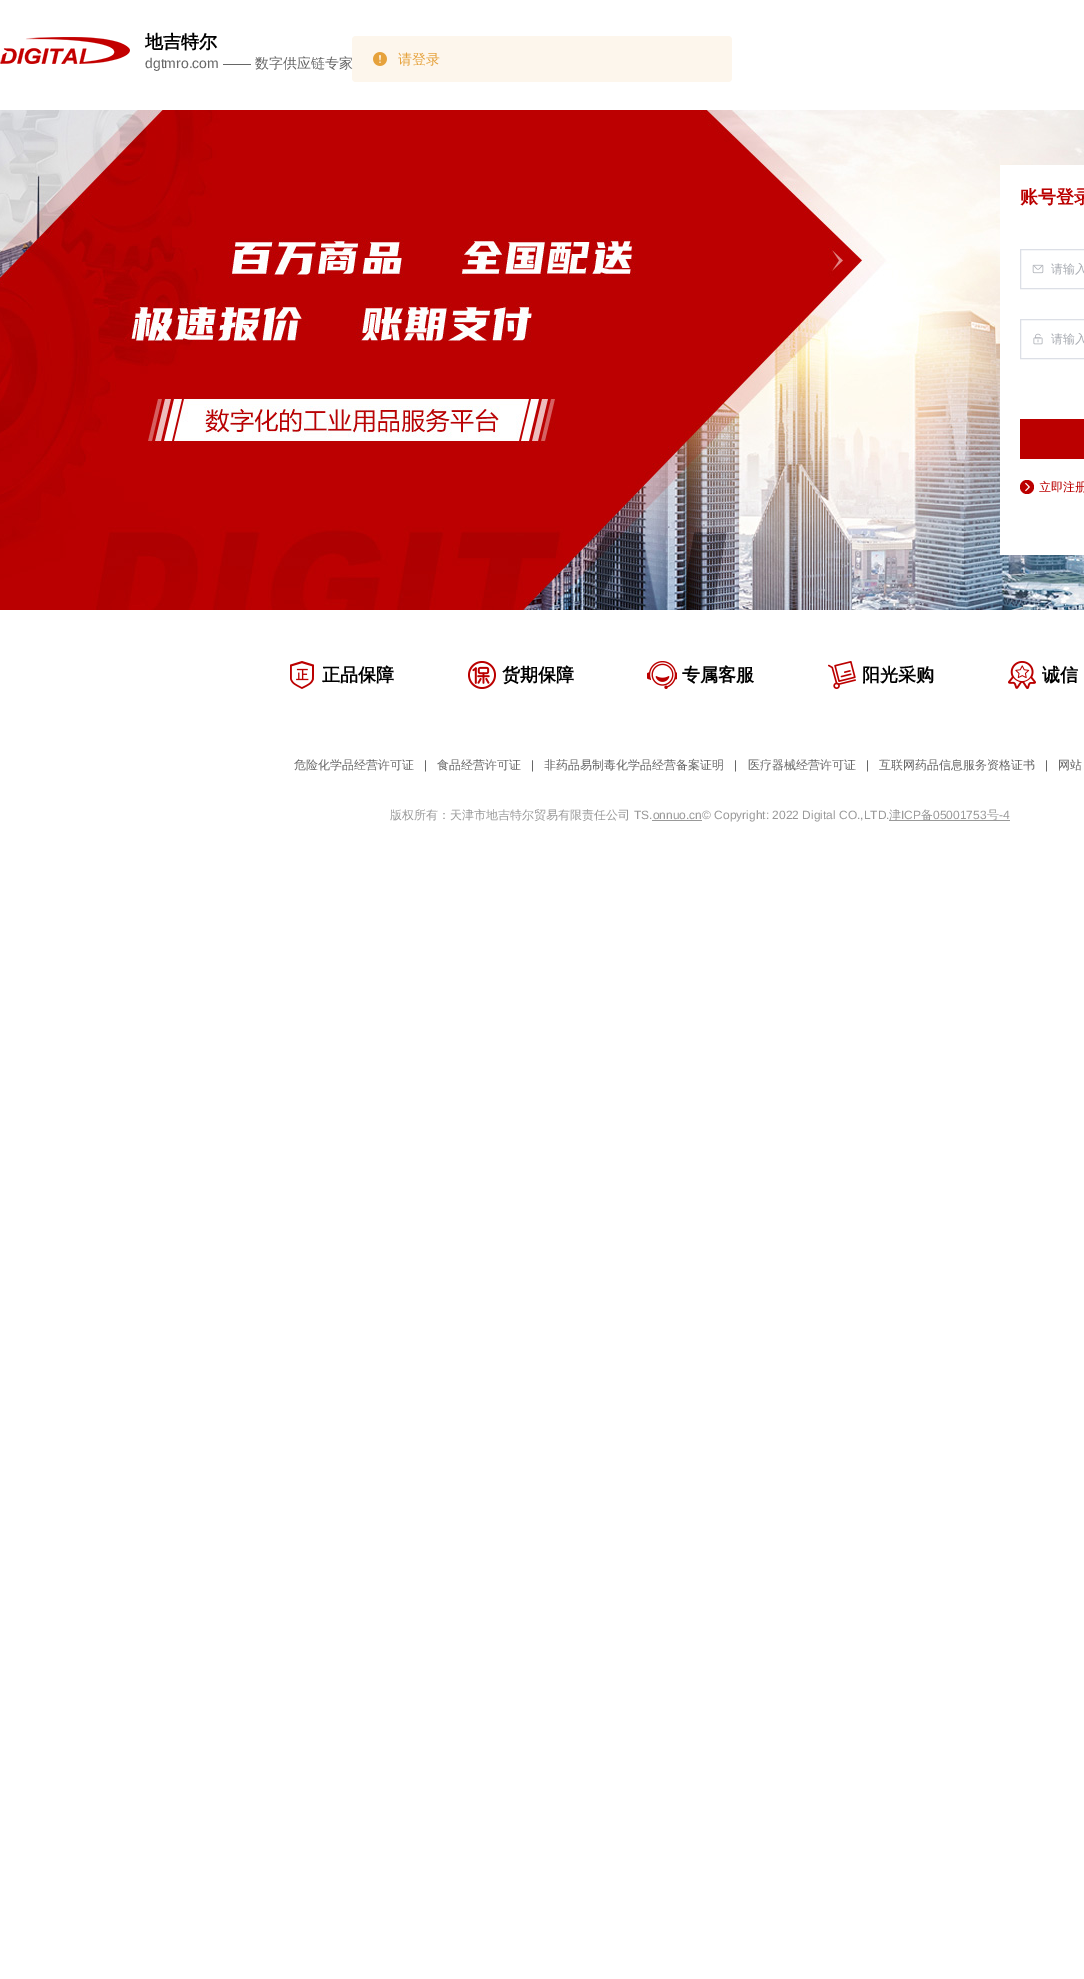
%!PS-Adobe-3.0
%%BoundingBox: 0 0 1084 1979
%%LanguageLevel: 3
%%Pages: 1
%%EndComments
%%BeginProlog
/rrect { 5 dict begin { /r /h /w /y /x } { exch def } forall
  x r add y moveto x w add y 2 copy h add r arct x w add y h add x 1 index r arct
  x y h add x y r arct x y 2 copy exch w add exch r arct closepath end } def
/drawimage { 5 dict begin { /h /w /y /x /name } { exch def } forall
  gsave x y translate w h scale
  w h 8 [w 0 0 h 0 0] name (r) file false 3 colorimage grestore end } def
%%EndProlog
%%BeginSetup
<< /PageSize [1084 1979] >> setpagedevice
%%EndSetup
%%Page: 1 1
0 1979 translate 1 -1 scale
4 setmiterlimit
1 setgray
0 0 1084 1979 rectfill
(images/1.raw) 0 37 130 27 drawimage
(images/2.raw) 0 110 1084 500 drawimage
1000 165 84 390 rectfill
0.863 0.875 0.902 setrgbcolor
1020.5 249.5 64 39 rectstroke
(images/3.raw) 1032 264 12 10 drawimage
1020.5 319.5 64 39 rectstroke
(images/4.raw) 1033 333 10 12 drawimage
0.733 0 0 setrgbcolor
1020 419 64 40 rectfill
newpath 1027 487 7 0 360 arc closepath fill
(images/5.raw) 1025 482 5 10 drawimage
(images/6.raw) 290 661 24 28 drawimage
(images/7.raw) 468 661 28 28 drawimage
(images/8.raw) 647 661 30 28 drawimage
(images/9.raw) 828 661 28 28 drawimage
(images/10.raw) 1008 661 28 28 drawimage
0.6 setgray
889 820 121 1 rectfill
652 820 50 1 rectfill
0.992 0.965 0.925 setrgbcolor
352 36 380 46 4 rrect fill
(images/11.raw) 373 52 14 14 drawimage
/WenQuanYiZenHei-Bold [18 0 0 -18 0 0] selectfont
0 setgray
145 48 moveto (地吉特尔) show
/LiberationSans-Regular [14 0 0 -14 0 0] selectfont
0.4 setgray
145 68 moveto (dgtmro.com ——) show
/WenQuanYiZenHei-Medium [14 0 0 -14 0 0] selectfont
255 68 moveto (数字供应链专家) show
/WenQuanYiZenHei-Bold [18 0 0 -18 0 0] selectfont
0.733 0 0 setrgbcolor
1020 203 moveto (账号登录) show
/WenQuanYiZenHei-Medium [12 0 0 -12 0 0] selectfont
0.659 0.671 0.698 setrgbcolor
1051 273 moveto (请输入) show
1051 343 moveto (请输入) show
0.733 0 0 setrgbcolor
1039 491 moveto (立即注册) show
/WenQuanYiZenHei-Bold [18 0 0 -18 0 0] selectfont
0 setgray
322 681 moveto (正品保障) show
502 681 moveto (货期保障) show
682 681 moveto (专属客服) show
862 681 moveto (阳光采购) show
1042 681 moveto (诚信) show
/WenQuanYiZenHei-Medium [12 0 0 -12 0 0] selectfont
0.4 setgray
294 769 moveto (危险化学品经营许可证) show
/LiberationSans-Regular [12 0 0 -12 0 0] selectfont
424 769 moveto (|) show
/WenQuanYiZenHei-Medium [12 0 0 -12 0 0] selectfont
437 769 moveto (食品经营许可证) show
/LiberationSans-Regular [12 0 0 -12 0 0] selectfont
531 769 moveto (|) show
/WenQuanYiZenHei-Medium [12 0 0 -12 0 0] selectfont
544 769 moveto (非药品易制毒化学品经营备案证明) show
/LiberationSans-Regular [12 0 0 -12 0 0] selectfont
734 769 moveto (|) show
/WenQuanYiZenHei-Medium [12 0 0 -12 0 0] selectfont
748 769 moveto (医疗器械经营许可证) show
/LiberationSans-Regular [12 0 0 -12 0 0] selectfont
866 769 moveto (|) show
/WenQuanYiZenHei-Medium [12 0 0 -12 0 0] selectfont
879 769 moveto (互联网药品信息服务资格证书) show
/LiberationSans-Regular [12 0 0 -12 0 0] selectfont
1045 769 moveto (|) show
/WenQuanYiZenHei-Medium [12 0 0 -12 0 0] selectfont
1058 769 moveto (网站) show
0.6 setgray
390 819 moveto (版权所有：天津市地吉特尔贸易有限责任公司) show
/LiberationSans-Regular [12 0 0 -12 0 0] selectfont
634 819 moveto (TS.onnuo.cn© Copyright: 2022 Digital CO.,LTD.) show
/WenQuanYiZenHei-Medium [12 0 0 -12 0 0] selectfont
889 819 moveto (津) show
/LiberationSans-Regular [12 0 0 -12 0 0] selectfont
901 819 moveto (ICP) show
/WenQuanYiZenHei-Medium [12 0 0 -12 0 0] selectfont
921 819 moveto (备) show
/LiberationSans-Regular [12 0 0 -12 0 0] selectfont
933 819 moveto (05001753) show
/WenQuanYiZenHei-Medium [12 0 0 -12 0 0] selectfont
987 819 moveto (号) show
/LiberationSans-Regular [12 0 0 -12 0 0] selectfont
999 819 moveto (-4) show
/WenQuanYiZenHei-Medium [14 0 0 -14 0 0] selectfont
0.902 0.635 0.235 setrgbcolor
398 64 moveto (请登录) show
showpage
%%EOF
